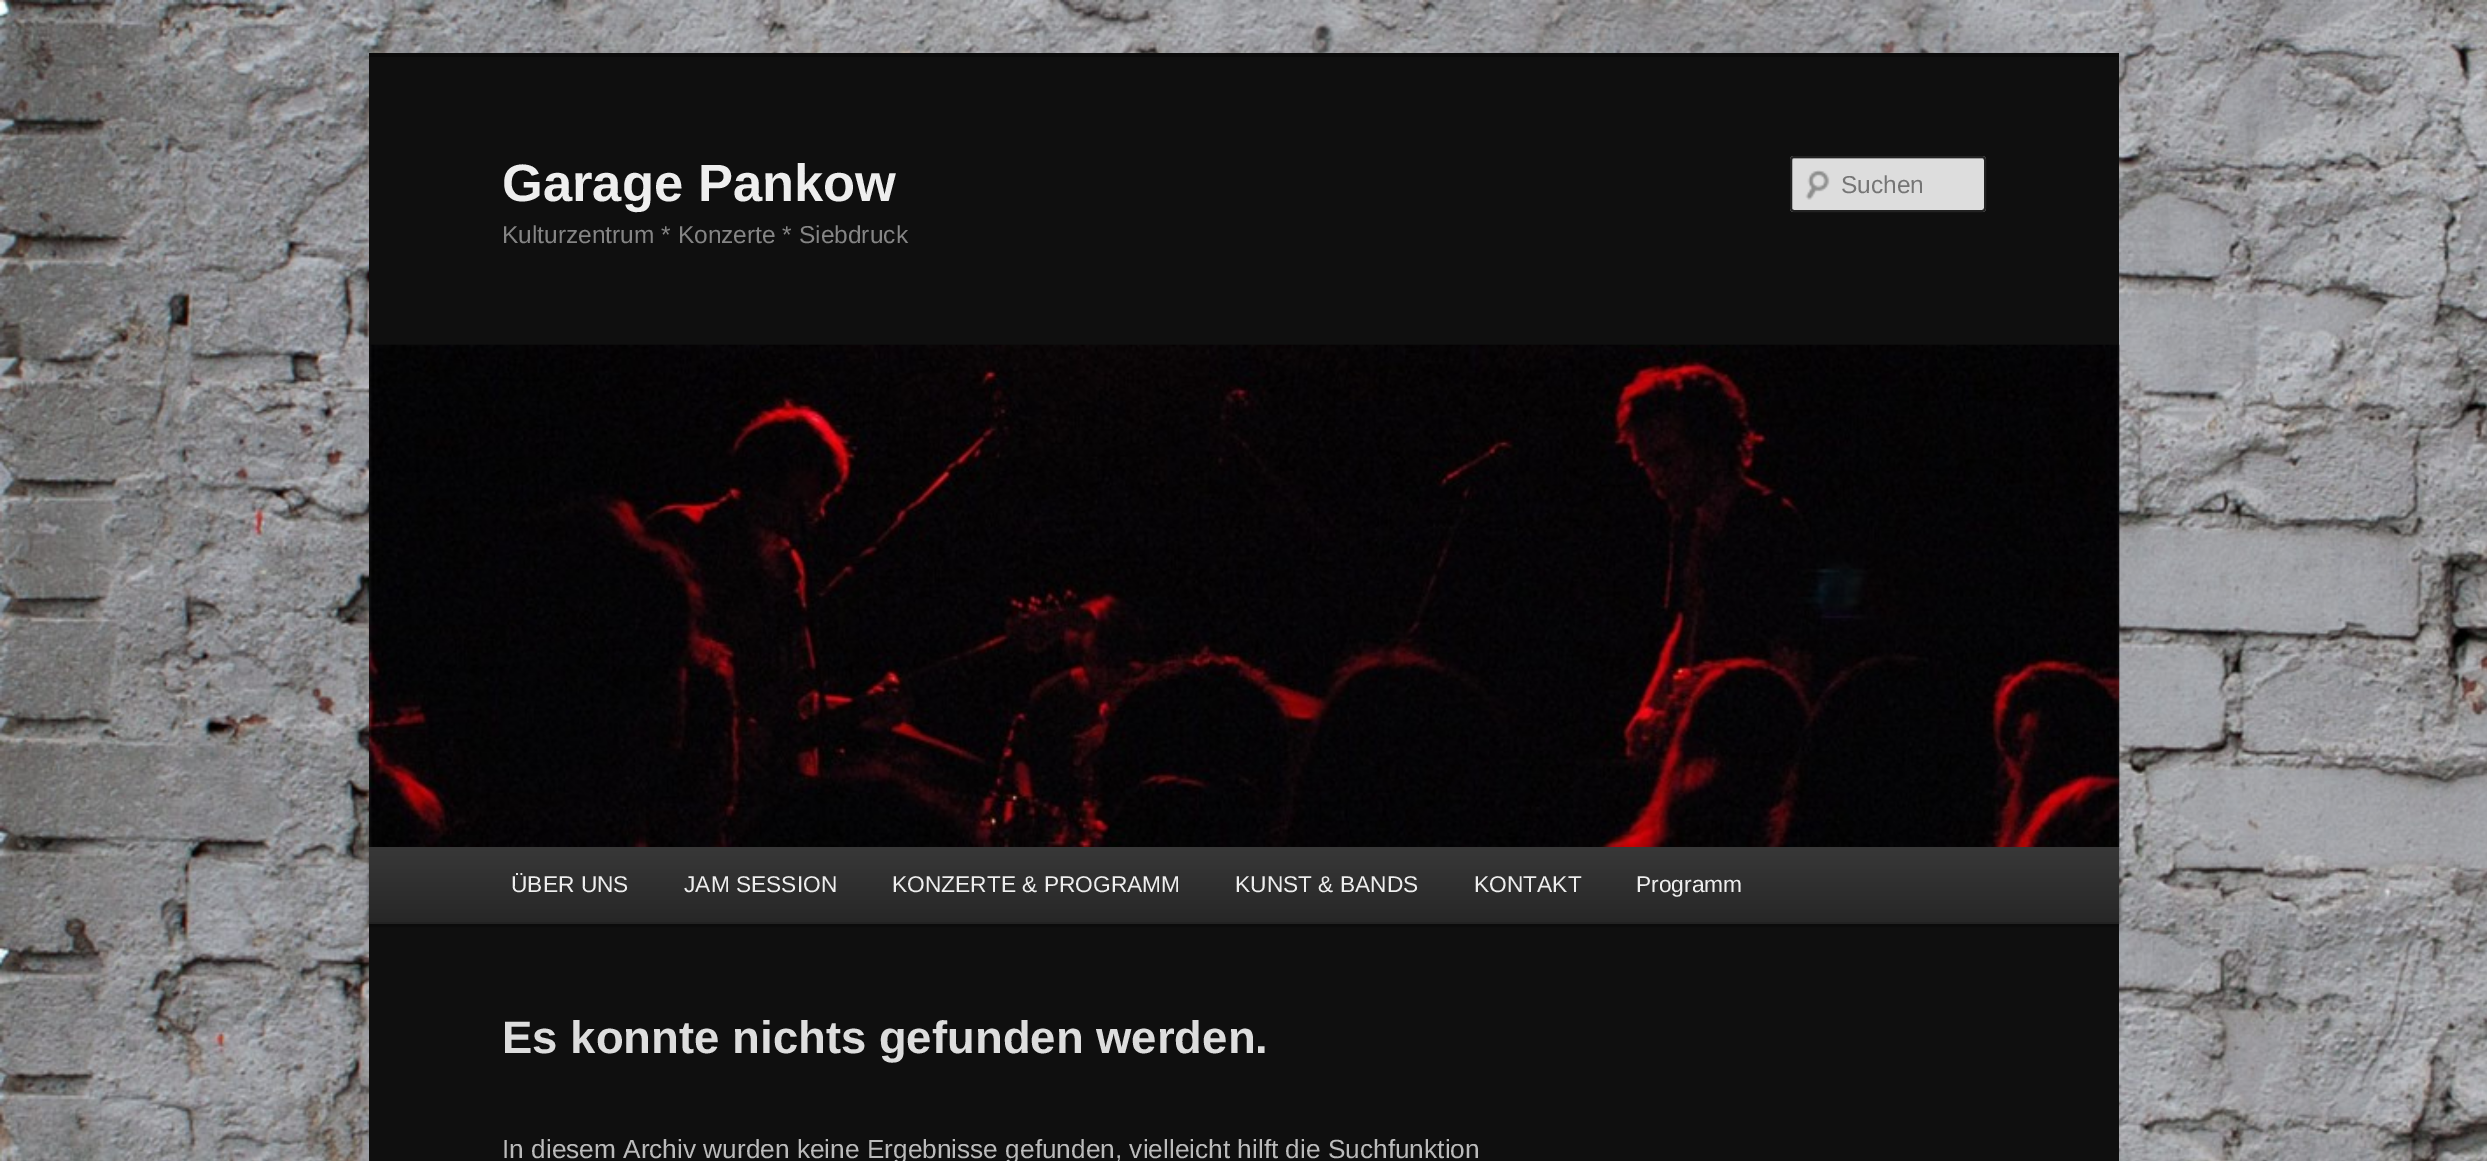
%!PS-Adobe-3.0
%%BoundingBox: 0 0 2487 1161
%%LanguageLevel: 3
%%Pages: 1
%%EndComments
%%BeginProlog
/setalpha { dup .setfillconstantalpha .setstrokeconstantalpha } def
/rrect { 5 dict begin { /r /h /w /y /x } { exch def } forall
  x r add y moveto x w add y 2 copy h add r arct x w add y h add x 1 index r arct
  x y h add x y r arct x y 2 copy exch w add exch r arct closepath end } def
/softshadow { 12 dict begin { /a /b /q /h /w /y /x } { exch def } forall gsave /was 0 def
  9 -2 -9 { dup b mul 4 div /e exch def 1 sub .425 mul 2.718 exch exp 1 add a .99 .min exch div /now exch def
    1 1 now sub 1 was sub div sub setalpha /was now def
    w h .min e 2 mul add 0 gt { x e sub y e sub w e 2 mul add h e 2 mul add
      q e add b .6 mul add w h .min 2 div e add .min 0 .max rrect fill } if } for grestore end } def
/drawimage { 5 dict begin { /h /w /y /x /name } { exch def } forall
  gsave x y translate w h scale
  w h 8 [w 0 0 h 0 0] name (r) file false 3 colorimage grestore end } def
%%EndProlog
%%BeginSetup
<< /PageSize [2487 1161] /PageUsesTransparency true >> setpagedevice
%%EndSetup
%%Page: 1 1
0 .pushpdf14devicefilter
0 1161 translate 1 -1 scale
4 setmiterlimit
1 setgray
0 0 2487 1161 rectfill
(images/1.raw) 0 0 2487 1161 drawimage
0.059 setgray
369 57 1750 1104 rectfill
0.039 setgray
369 53 1750 4 rectfill
0.867 setgray
1790 156 196 56 4 rrect fill
(images/2.raw) 1805 170 25 30 drawimage
0.78 setgray
newpath 1794 159 moveto 1983 159 lineto 1984 159 1984 160 1984 161 curveto 1984 210 lineto 1985 209 1985 209 1985 208 curveto 1985 160 lineto 1985 159 1984 158 1983 158 curveto 1794 158 lineto 1793 158 1792 159 1792 160 curveto 1792 161 lineto 1792 160 1793 159 1794 159 curveto closepath fill
0.133 setgray
2 setlinewidth
1791 157 194 54 3 rrect stroke
0 setgray
369 849 1750 77 0 2 0.4 softshadow
(images/3.raw) 369 344 1751 503 drawimage
gsave newpath 369 847 moveto 2119 847 lineto 2119 922 lineto 369 922 lineto closepath clip newpath
<< /ShadingType 2 /ColorSpace /DeviceRGB /Coords [1244 847 1244 922] /Extend [true true] /Function << /FunctionType 2 /Domain [0 1] /C0 [0.22 0.22 0.22] /C1 [0.153 0.153 0.153] /N 1 >> >> shfill grestore
0.133 setgray
369 922 1750 2 rectfill
/LiberationSans-Bold [52.5 0 0 -52.5 0 0] selectfont
0.933 setgray
502 201 moveto (Garage Pankow) show
/LiberationSans-Regular [24.5 0 0 -24.5 0 0] selectfont
0.522 setgray
502 243 moveto (Kulturzentrum * Konzerte * Siebdruck) show
0.459 setgray
1841 193 moveto (Suchen) show
/LiberationSans-Regular [22.75 0 0 -22.75 0 0] selectfont
0.933 setgray
511 892 moveto (ÜBER UNS) show
684 892 moveto (JAM SESSION) show
892 892 moveto (KONZERTE & PROGRAMM) show
1235 892 moveto (KUNST & BANDS) show
1474 892 moveto (KONTAKT) show
1636 892 moveto (Programm) show
/LiberationSans-Bold [45.5 0 0 -45.5 0 0] selectfont
0.867 setgray
502 1053 moveto (Es konnte nichts gefunden werden.) show
/LiberationSans-Regular [26.25 0 0 -26.25 0 0] selectfont
0.733 setgray
502 1158 moveto (In diesem Archiv wurden keine Ergebnisse gefunden, vielleicht hilft die Suchfunktion) show
.poppdf14devicefilter showpage
%%EOF
